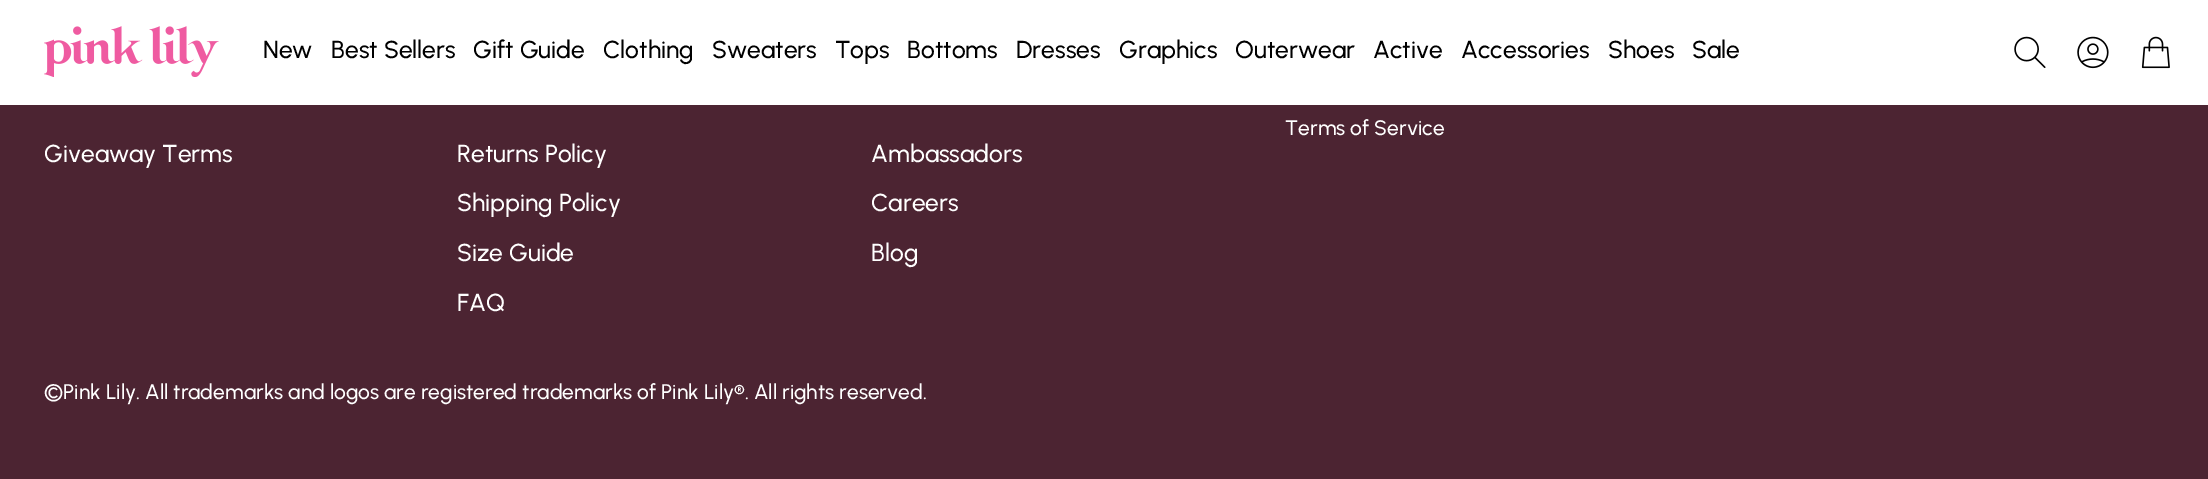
%!PS-Adobe-3.0
%%BoundingBox: 0 0 2208 479
%%LanguageLevel: 3
%%Pages: 1
%%EndComments
%%BeginProlog
/drawimage { 5 dict begin { /h /w /y /x /name } { exch def } forall
  gsave x y translate w h scale
  w h 8 [w 0 0 h 0 0] name (r) file false 3 colorimage grestore end } def
%%EndProlog
%%BeginSetup
<< /PageSize [2208 479] >> setpagedevice
%%EndSetup
%%Page: 1 1
0 479 translate 1 -1 scale
4 setmiterlimit
0.298 0.141 0.196 setrgbcolor
0 0 2208 479 rectfill
1 setgray
0 0 2208 105 rectfill
(images/1.raw) 44 26 175 51 drawimage
(images/2.raw) 2014 36 32 32 drawimage
(images/3.raw) 2077 36 32 33 drawimage
(images/4.raw) 2141 36 29 33 drawimage
/Urbanist-Medium [24.5 0 0 -24.5 0 0] selectfont
0 setgray
263 58 moveto (New) show
331 58 moveto (Best Sellers) show
473 58 moveto (Gift Guide) show
603 58 moveto (Clothing) show
712 58 moveto (Sweaters) show
835 58 moveto (Tops) show
907 58 moveto (Bottoms) show
1016 58 moveto (Dresses) show
1119 58 moveto (Graphics) show
1235 58 moveto (Outerwear) show
1373 58 moveto (Active) show
1461 58 moveto (Accessories) show
1608 58 moveto (Shoes) show
1692 58 moveto (Sale) show
/Urbanist-Medium [21 0 0 -21 0 0] selectfont
1 setgray
1285 135 moveto (Terms of Service) show
/Urbanist-Medium [24.5 0 0 -24.5 0 0] selectfont
44 162 moveto (Giveaway Terms) show
457 162 moveto (Returns Policy) show
457 211 moveto (Shipping Policy) show
457 261 moveto (Size Guide) show
457 311 moveto (FAQ) show
871 162 moveto (Ambassadors) show
871 211 moveto (Careers) show
871 261 moveto (Blog) show
/Urbanist-Medium [21 0 0 -21 0 0] selectfont
44 399 moveto (©Pink Lily. All trademarks and logos are registered trademarks of Pink Lily®. All rights reserved.) show
showpage
%%EOF
